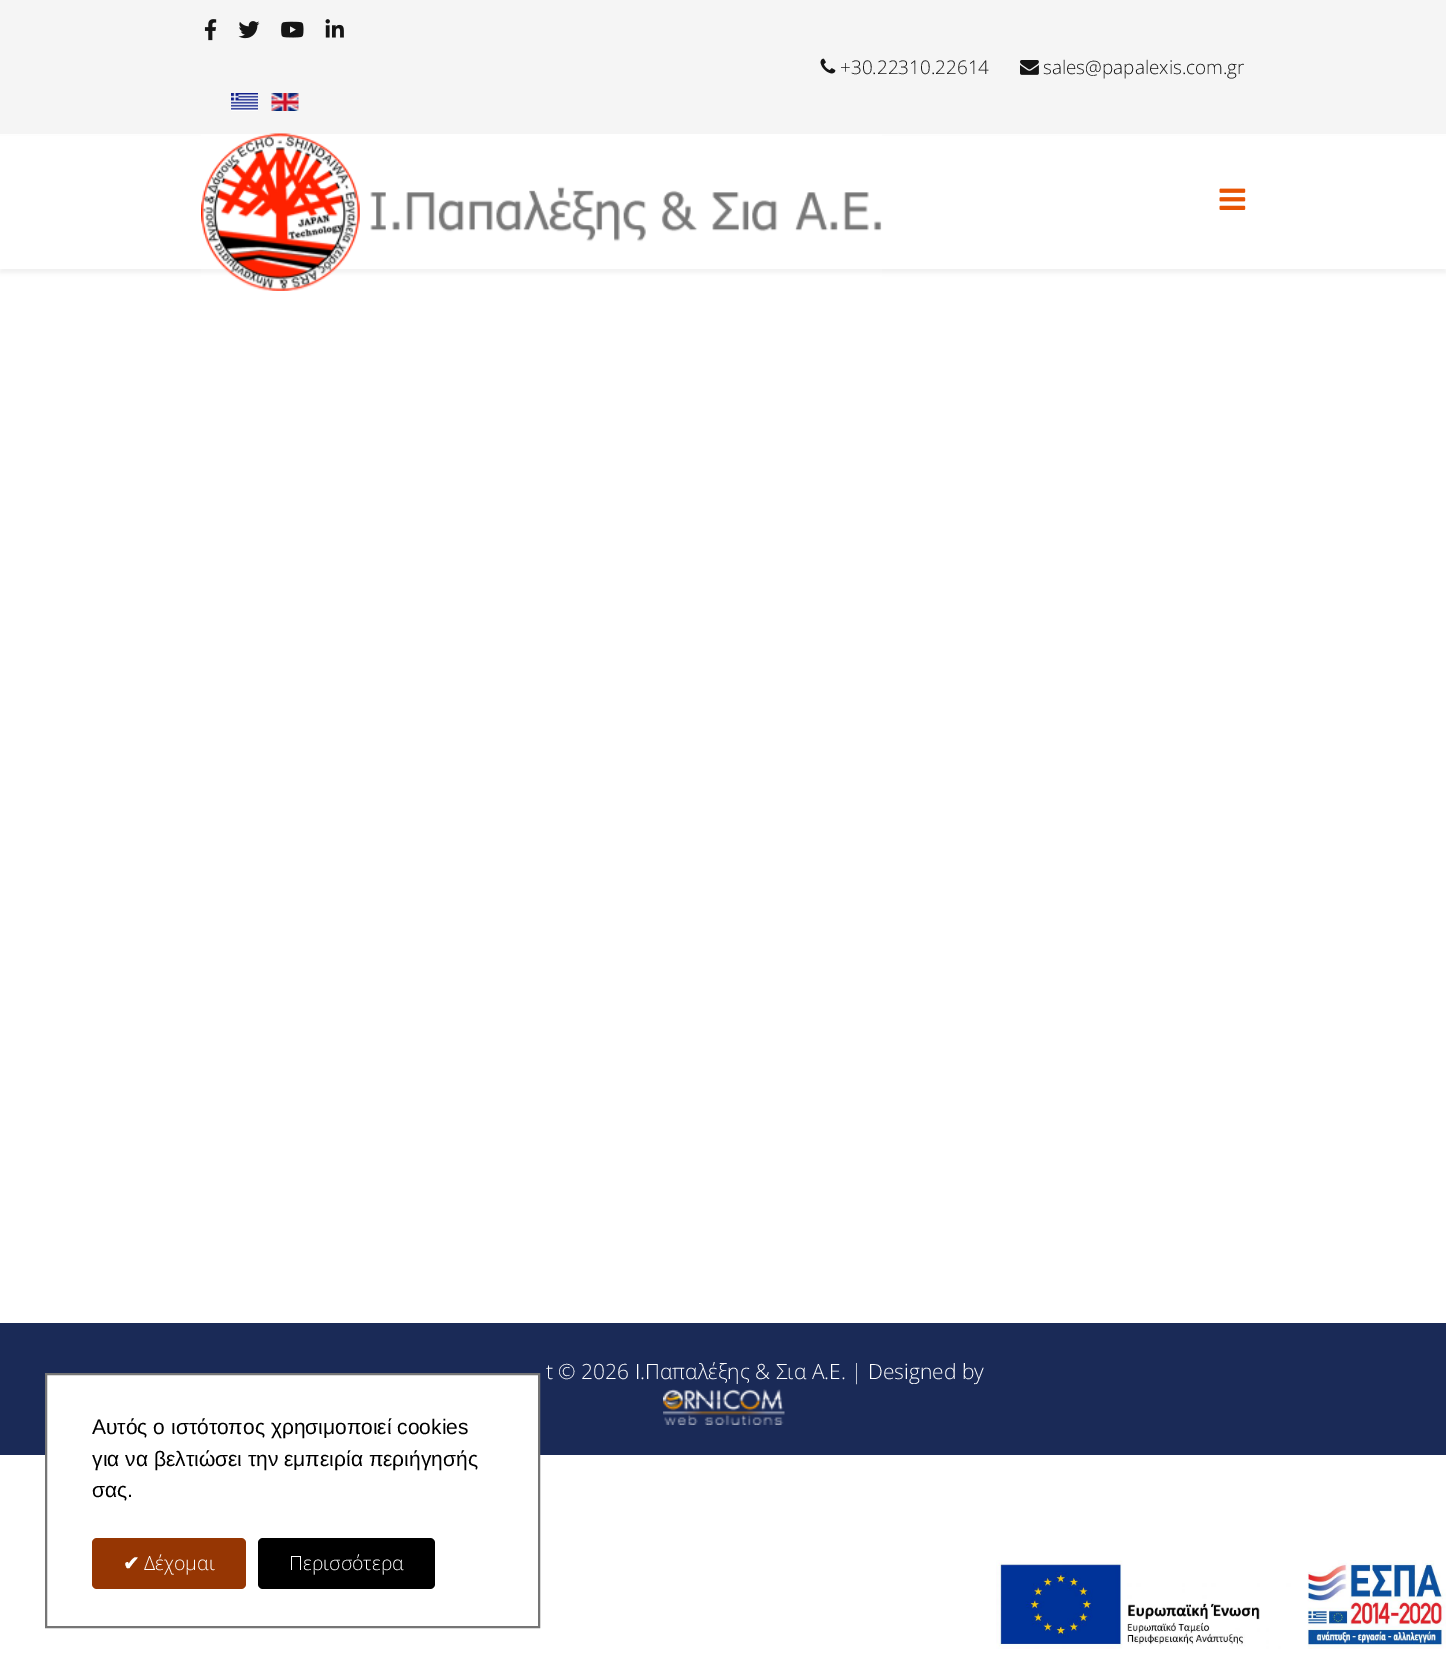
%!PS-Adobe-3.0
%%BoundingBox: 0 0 1446 1672
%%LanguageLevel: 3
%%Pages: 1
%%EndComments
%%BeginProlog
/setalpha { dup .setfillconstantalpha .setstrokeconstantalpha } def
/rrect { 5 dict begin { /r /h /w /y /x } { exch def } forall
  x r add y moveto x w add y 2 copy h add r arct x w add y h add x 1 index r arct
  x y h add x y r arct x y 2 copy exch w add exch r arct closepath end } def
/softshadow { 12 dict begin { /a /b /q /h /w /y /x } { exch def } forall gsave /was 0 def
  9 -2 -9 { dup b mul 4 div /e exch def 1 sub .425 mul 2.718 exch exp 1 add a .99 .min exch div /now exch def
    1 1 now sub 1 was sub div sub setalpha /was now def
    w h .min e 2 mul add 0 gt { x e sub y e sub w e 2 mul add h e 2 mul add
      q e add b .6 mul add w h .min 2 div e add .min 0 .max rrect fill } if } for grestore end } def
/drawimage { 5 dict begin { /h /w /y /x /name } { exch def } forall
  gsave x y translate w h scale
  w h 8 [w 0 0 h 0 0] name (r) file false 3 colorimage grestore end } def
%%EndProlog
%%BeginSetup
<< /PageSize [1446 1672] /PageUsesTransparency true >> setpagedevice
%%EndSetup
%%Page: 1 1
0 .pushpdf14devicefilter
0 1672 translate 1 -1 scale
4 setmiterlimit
1 setgray
0 0 1446 1672 rectfill
0.961 setgray
0 0 1446 134 rectfill
(images/1.raw) 204 19 13 22 drawimage
(images/2.raw) 238 21 22 18 drawimage
(images/3.raw) 281 21 23 17 drawimage
(images/4.raw) 325 19 19 19 drawimage
(images/5.raw) 820 58 16 16 drawimage
(images/6.raw) 1020 60 19 15 drawimage
(images/7.raw) 231 93 27 18 drawimage
(images/8.raw) 271 93 28 18 drawimage
0 setgray
0 138 1446 135 0 2 0.05 softshadow
1 setgray
0 136 1446 133 rectfill
(images/9.raw) 201 133 681 158 drawimage
(images/10.raw) 1219 188 27 22 drawimage
0.102 0.165 0.341 setrgbcolor
0 1323 1446 132 rectfill
(images/11.raw) 663 1389 122 36 drawimage
1 setgray
47 1375 491 80 rectfill
0.459 setgray
2 setlinewidth
46 1374 493 253 rectstroke
0.588 0.212 0.012 setrgbcolor
92 1538 154 51 5 rrect fill
0 setgray
258 1538 177 51 5 rrect fill
(images/12.raw) 996 1560 450 89 drawimage
/OpenSans-Light [18.9 0 0 -18.9 0 0] selectfont
0.082 setgray
840 74 moveto (+30.22310.22614) show
1043 74 moveto (sales@papalexis.com.gr) show
/OpenSans-Light [21 0 0 -21 0 0] selectfont
1 setgray
546 1379 moveto (t © 2026 Ι.Παπαλέξης & Σια Α.Ε. | Designed by) show
/LiberationSans-Regular [21 0 0 -21 0 0] selectfont
0 setgray
92 1434 moveto (Αυτός ο ιστότοπος χρησιμοποιεί cookies) show
92 1466 moveto (για να βελτιώσει την εμπειρία περιήγησής) show
92 1497 moveto (σας.) show
/DejaVuSans-Bold [19.5 0 0 -19.5 0 0] selectfont
1 setgray
123 1570 moveto (✔) show
/OpenSans-Light [19.5 0 0 -19.5 0 0] selectfont
144 1570 moveto (Δέχομαι) show
289 1570 moveto (Περισσότερα) show
.poppdf14devicefilter showpage
%%EOF
